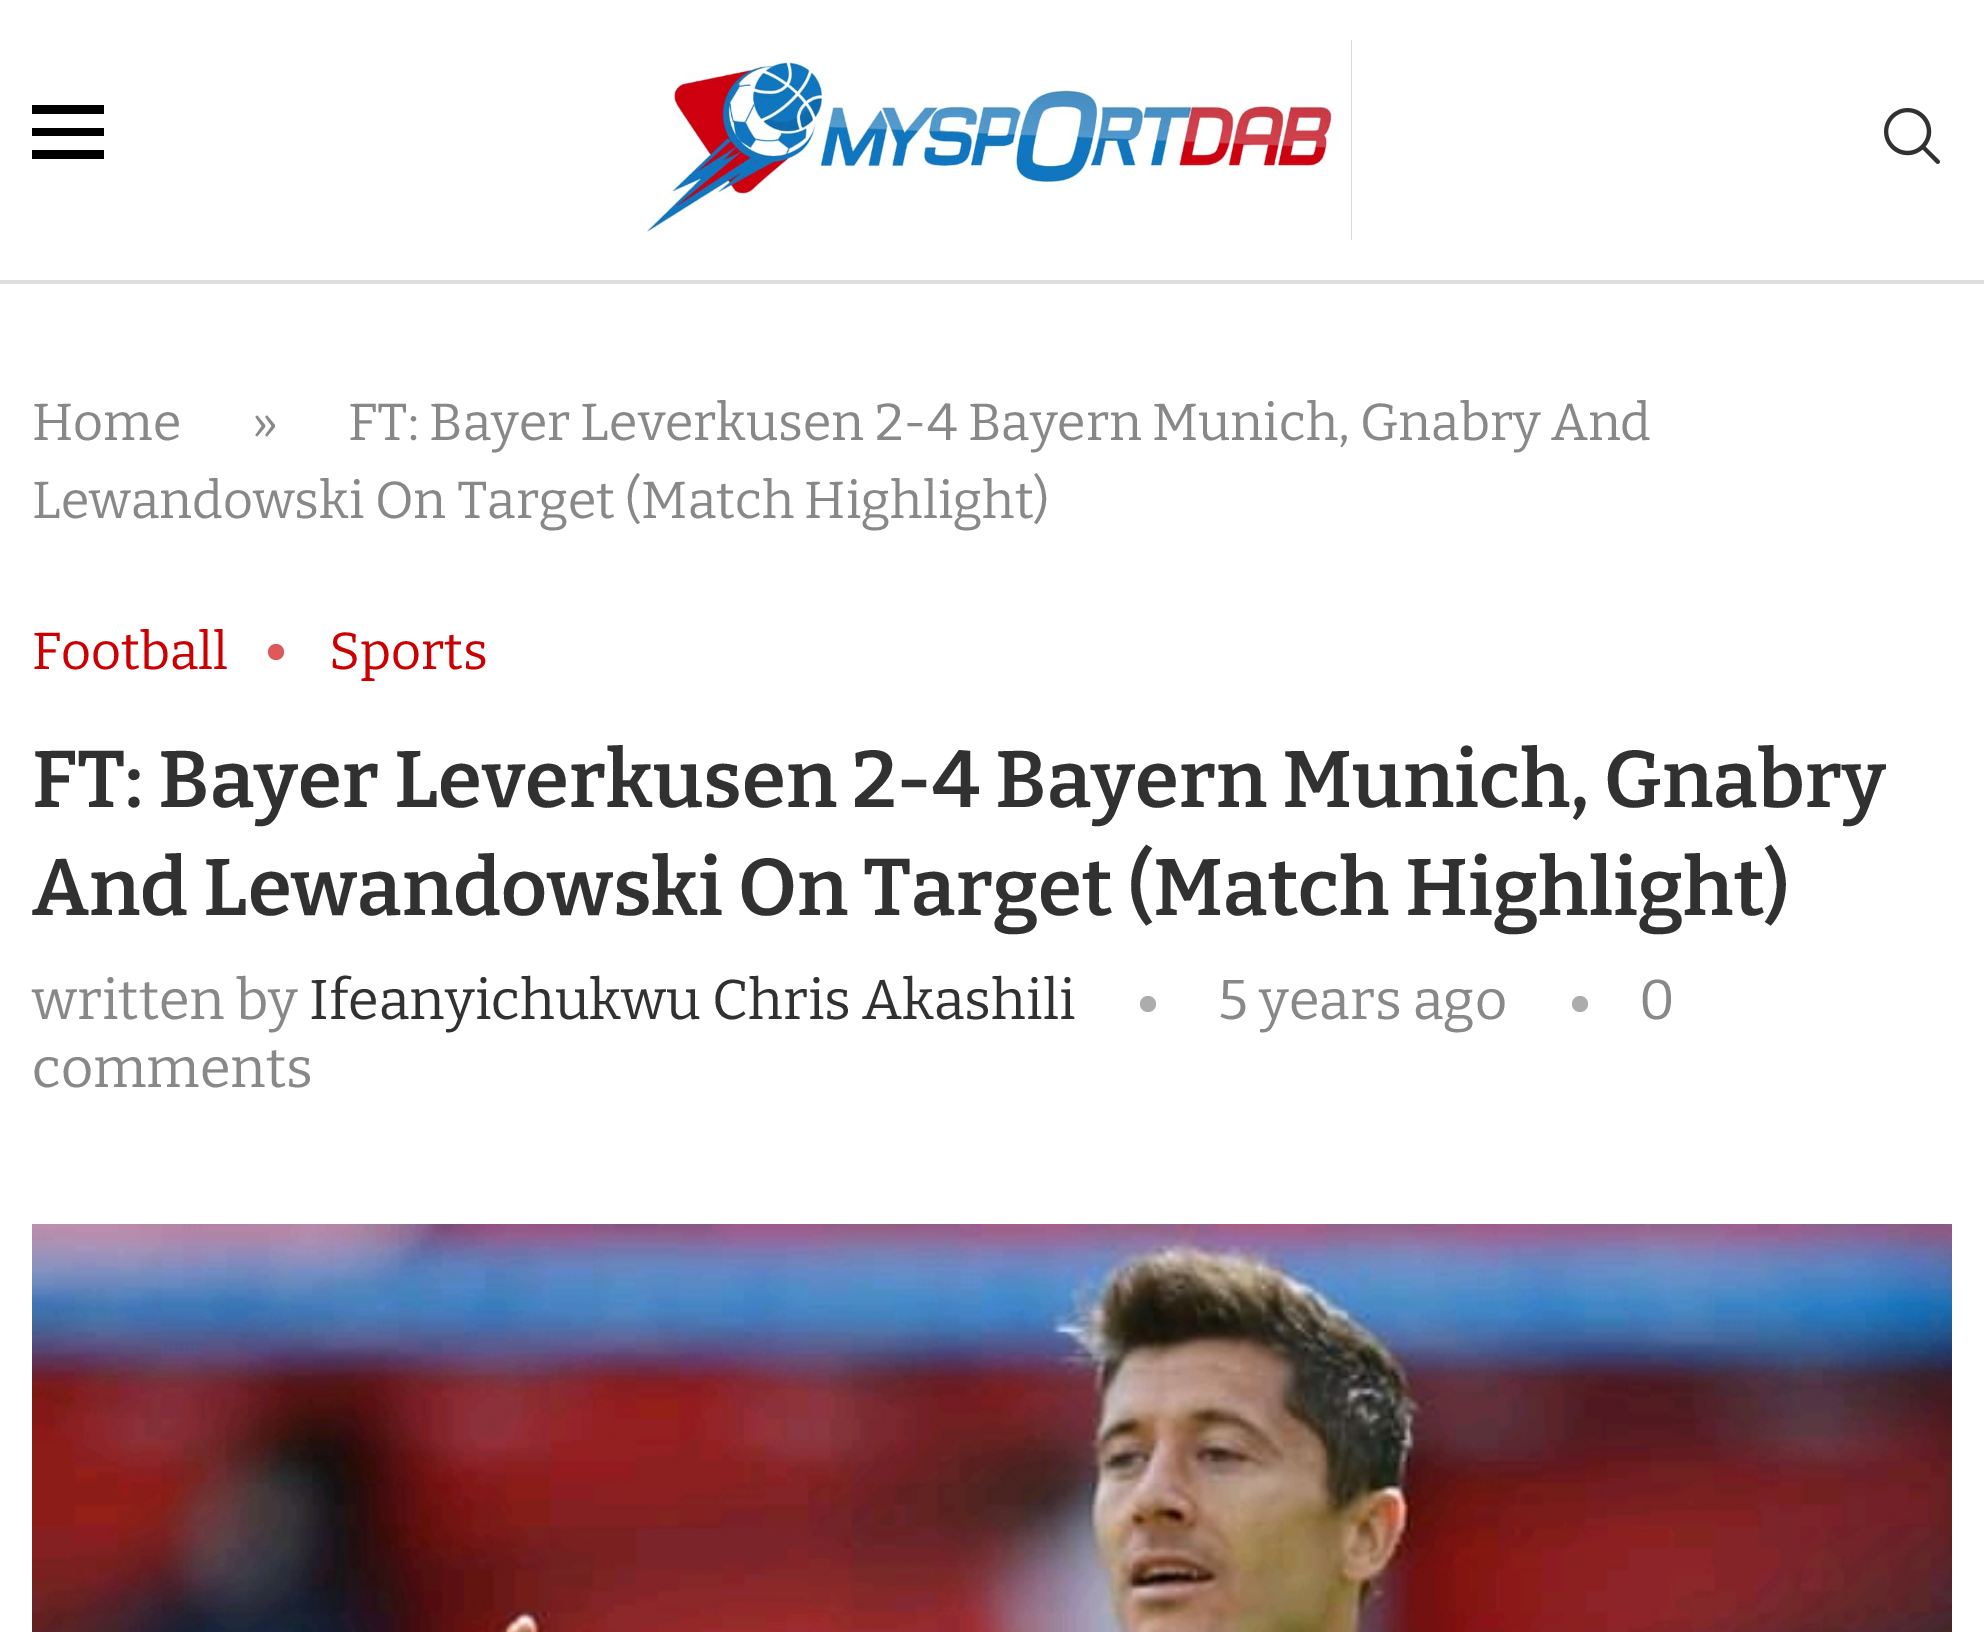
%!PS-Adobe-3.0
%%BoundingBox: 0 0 1984 1632
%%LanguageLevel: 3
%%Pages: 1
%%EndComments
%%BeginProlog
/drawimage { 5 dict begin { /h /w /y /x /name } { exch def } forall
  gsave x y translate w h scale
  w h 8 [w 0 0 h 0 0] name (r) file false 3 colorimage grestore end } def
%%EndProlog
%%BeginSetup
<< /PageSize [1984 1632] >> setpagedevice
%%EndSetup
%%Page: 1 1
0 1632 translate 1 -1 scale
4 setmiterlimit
1 setgray
0 0 1984 1632 rectfill
0.871 setgray
0 280 1984 4 rectfill
0 setgray
32 105 72 9 rectfill
32 128 72 8 rectfill
32 150 72 9 rectfill
(images/1.raw) 643 40 709 200 drawimage
(images/2.raw) 1884 108 56 56 drawimage
0.871 0.349 0.349 setrgbcolor
newpath 276 652 8 0 360 arc closepath fill
0.675 setgray
newpath 1580 1004 8 0 360 arc closepath fill
newpath 1148 1004 8 0 360 arc closepath fill
(images/3.raw) 32 1224 1920 408 drawimage
/Bitter-Regular [52 0 0 -52 0 0] selectfont
0.533 setgray
32 440 moveto (Home) show
252 440 moveto (») show
348 440 moveto (FT: Bayer Leverkusen 2-4 Bayern Munich, Gnabry And) show
32 518 moveto (Lewandowski On Target \(Match Highlight\)) show
0.8 0 0 setrgbcolor
32 669 moveto (Football) show
329 669 moveto (Sports) show
/Bitter-SemiBold [80 0 0 -80 0 0] selectfont
0.192 setgray
32 807 moveto (FT: Bayer Leverkusen 2-4 Bayern Munich, Gnabry) show
32 915 moveto (And Lewandowski On Target \(Match Highlight\)) show
/Bitter-Regular [56 0 0 -56 0 0] selectfont
0.533 setgray
32 1019 moveto (written by) show
0.192 setgray
309 1019 moveto (Ifeanyichukwu Chris Akashili) show
0.533 setgray
1639 1019 moveto (0) show
32 1087 moveto (comments) show
1218 1019 moveto (5 years ago) show
showpage
%%EOF
